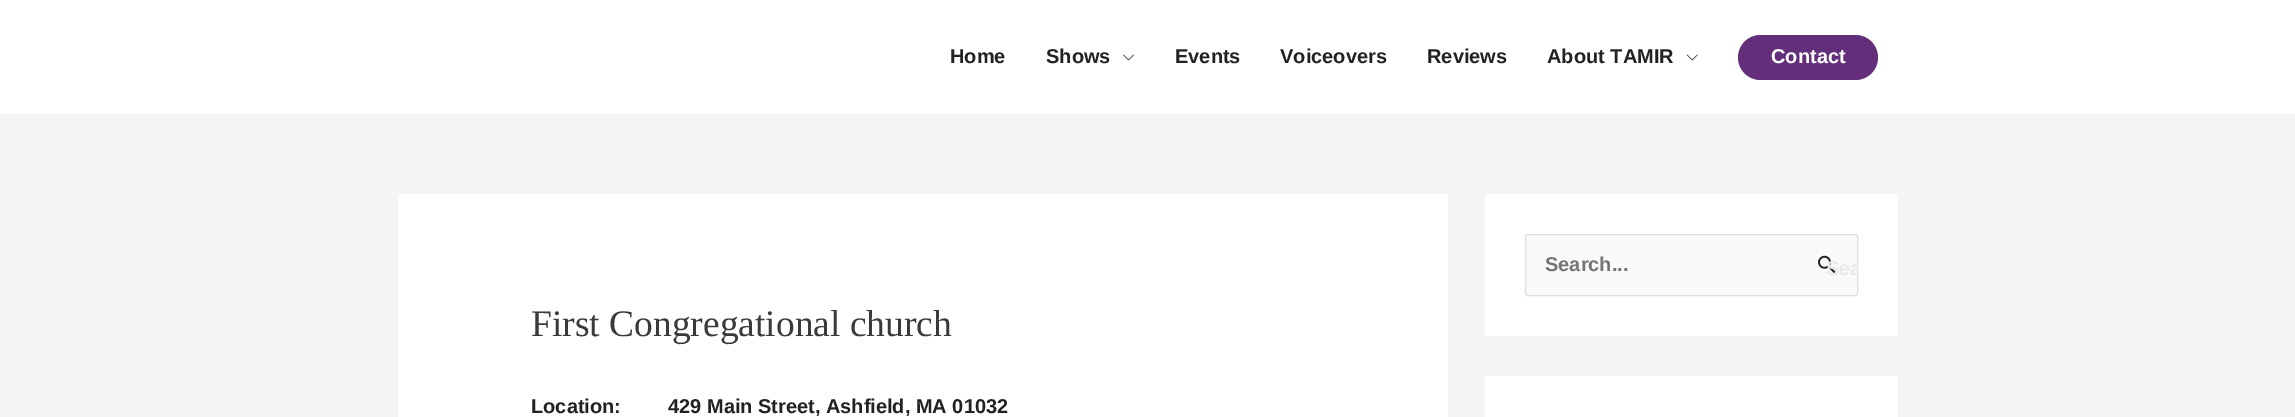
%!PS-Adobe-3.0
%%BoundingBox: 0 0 2295 417
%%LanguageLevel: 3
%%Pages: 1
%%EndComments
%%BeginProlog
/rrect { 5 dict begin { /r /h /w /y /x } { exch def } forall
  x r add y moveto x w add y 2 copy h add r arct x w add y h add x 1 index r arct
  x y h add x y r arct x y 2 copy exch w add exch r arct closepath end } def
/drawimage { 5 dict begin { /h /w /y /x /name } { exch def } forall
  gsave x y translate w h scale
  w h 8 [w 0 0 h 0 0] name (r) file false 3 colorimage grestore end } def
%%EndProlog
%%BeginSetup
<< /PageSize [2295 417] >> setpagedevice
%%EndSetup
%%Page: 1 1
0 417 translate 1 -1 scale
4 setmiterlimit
0.961 setgray
0 0 2295 417 rectfill
1 setgray
0 0 2295 114 rectfill
(images/1.raw) 1123 54 11 7 drawimage
(images/2.raw) 1686 54 12 7 drawimage
0.388 0.18 0.478 setrgbcolor
1738 35 140 45 22.5 rrect fill
1 setgray
1485 194 413 142 rectfill
0.98 setgray
1525.5 234.5 332 61 2 rrect gsave fill grestore
0.867 setgray
stroke
(images/3.raw) 1818 255 18 19 drawimage
1 setgray
1485 376 413 41 rectfill
398 194 1050 223 rectfill
/LiberationSans-Bold [20 0 0 -20 0 0] selectfont
0.133 setgray
950 63 moveto (Home) show
1046 63 moveto (Shows) show
1175 63 moveto (Events) show
1280 63 moveto (Voiceovers) show
1427 63 moveto (Reviews) show
1547 63 moveto (About TAMIR) show
1 setgray
1771 63 moveto (Contact) show
0.459 setgray
1545 271 moveto (Search...) show
gsave
1801 234 57 70 2.5 rrect clip newpath
0.914 setgray
1826 275 moveto (Sea) show
grestore
/LiberationSerif-Regular [37.5 0 0 -37.5 0 0] selectfont
0.227 setgray
531 336 moveto (First Congregational church) show
/LiberationSans-Bold [20 0 0 -20 0 0] selectfont
0.133 setgray
531 413 moveto (Location:) show
668 413 moveto (429 Main Street, Ashfield, MA 01032) show
showpage
%%EOF
